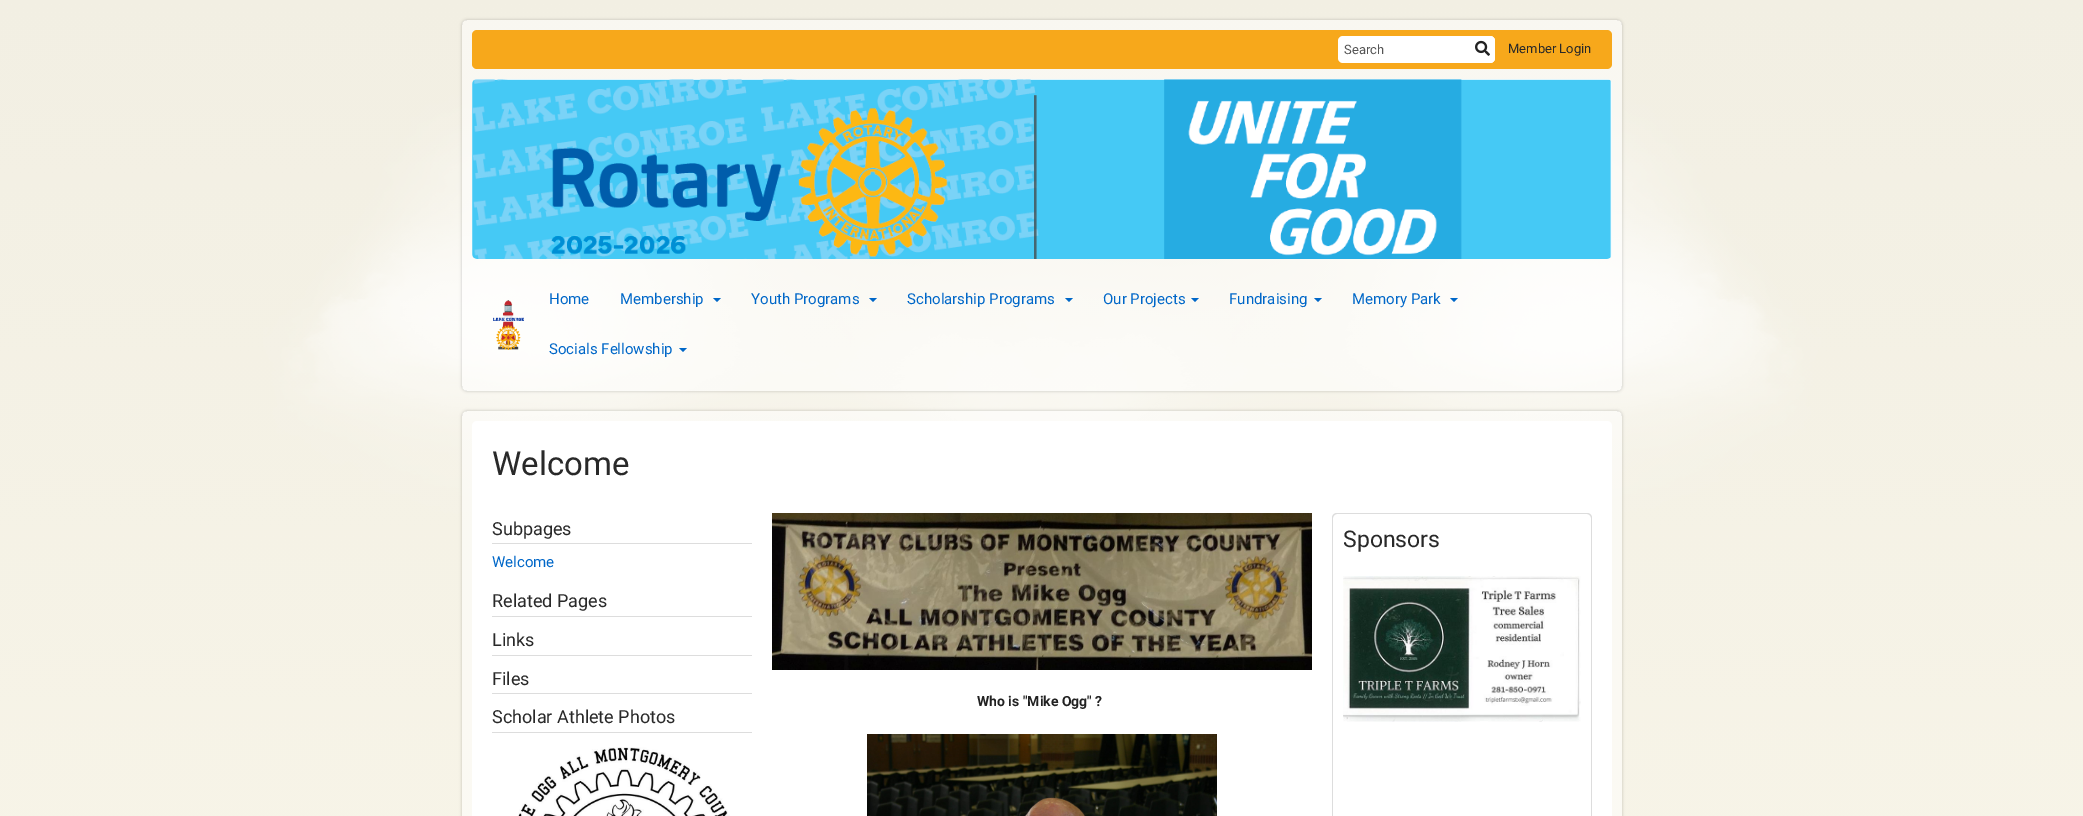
%!PS-Adobe-3.0
%%BoundingBox: 0 0 2083 816
%%LanguageLevel: 3
%%Pages: 1
%%EndComments
%%BeginProlog
/setalpha { dup .setfillconstantalpha .setstrokeconstantalpha } def
/rrect { 5 dict begin { /r /h /w /y /x } { exch def } forall
  x r add y moveto x w add y 2 copy h add r arct x w add y h add x 1 index r arct
  x y h add x y r arct x y 2 copy exch w add exch r arct closepath end } def
/softshadow { 12 dict begin { /a /b /q /h /w /y /x } { exch def } forall gsave /was 0 def
  9 -2 -9 { dup b mul 4 div /e exch def 1 sub .425 mul 2.718 exch exp 1 add a .99 .min exch div /now exch def
    1 1 now sub 1 was sub div sub setalpha /was now def
    w h .min e 2 mul add 0 gt { x e sub y e sub w e 2 mul add h e 2 mul add
      q e add b .6 mul add w h .min 2 div e add .min 0 .max rrect fill } if } for grestore end } def
/drawimage { 5 dict begin { /h /w /y /x /name } { exch def } forall
  gsave x y translate w h scale
  w h 8 [w 0 0 h 0 0] name (r) file false 3 colorimage grestore end } def
%%EndProlog
%%BeginSetup
<< /PageSize [2083 816] /PageUsesTransparency true >> setpagedevice
%%EndSetup
%%Page: 1 1
0 .pushpdf14devicefilter
0 816 translate 1 -1 scale
4 setmiterlimit
1 setgray
0 0 2083 816 rectfill
(images/1.raw) 0 0 2083 816 drawimage
gsave
newpath 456 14 moveto 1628 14 lineto 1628 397 lineto 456 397 lineto closepath 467 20 moveto 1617 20 lineto 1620 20 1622 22 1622 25 curveto 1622 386 lineto 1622 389 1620 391 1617 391 curveto 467 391 lineto 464 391 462 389 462 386 curveto 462 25 lineto 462 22 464 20 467 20 curveto closepath eoclip newpath
0 setgray
462 20 1160 371 5 1.5 0.2 softshadow
grestore
0.5 setalpha
462 20 1160 371 5 rrect fill
1 setalpha
0.969 0.659 0.106 setrgbcolor
472 30 1140 39 5 rrect fill
1 setgray
1338 36 157 27 5 rrect fill
1470 36 25 27 5 rrect fill
(images/2.raw) 1475 40 15 16 drawimage
(images/3.raw) 472 79 1140 180 drawimage
(images/4.raw) 493 300 31 50 drawimage
0 0.404 0.784 setrgbcolor
newpath 713 298 moveto 721 298 lineto 717 302 lineto closepath fill
newpath 869 298 moveto 877 298 lineto 873 302 lineto closepath fill
newpath 1065 298 moveto 1073 298 lineto 1069 302 lineto closepath fill
newpath 1191 298 moveto 1199 298 lineto 1195 302 lineto closepath fill
newpath 1314 298 moveto 1322 298 lineto 1318 302 lineto closepath fill
newpath 1450 298 moveto 1458 298 lineto 1454 302 lineto closepath fill
newpath 679 348 moveto 687 348 lineto 683 352 lineto closepath fill
gsave
newpath 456 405 moveto 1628 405 lineto 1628 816 lineto 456 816 lineto closepath 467 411 moveto 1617 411 lineto 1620 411 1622 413 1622 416 curveto 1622 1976 lineto 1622 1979 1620 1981 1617 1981 curveto 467 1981 lineto 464 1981 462 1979 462 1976 curveto 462 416 lineto 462 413 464 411 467 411 curveto closepath eoclip newpath
0 setgray
462 411 1160 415 5 1.5 0.2 softshadow
grestore
0.5 setalpha
1 setgray
462 411 1160 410 5 rrect fill
1 setalpha
472 421 1140 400 5 rrect fill
0.867 setgray
492 543 260 1 rectfill
492 616 260 1 rectfill
492 655 260 1 rectfill
492 693 260 1 rectfill
492 732 260 1 rectfill
(images/5.raw) 518 747 212 69 drawimage
newpath 1337 513 moveto 1587 513 lineto 1590 513 1592 515 1592 518 curveto 1592 566 lineto 1332 566 lineto 1332 518 lineto 1332 515 1334 513 1337 513 curveto closepath 1337 514 moveto 1587 514 lineto 1589 514 1591 516 1591 518 curveto 1591 566 lineto 1333 566 lineto 1333 518 lineto 1333 516 1335 514 1337 514 curveto closepath eofill
newpath 1332 566 moveto 1592 566 lineto 1592 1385 lineto 1592 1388 1590 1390 1587 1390 curveto 1337 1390 lineto 1334 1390 1332 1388 1332 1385 curveto closepath 1333 566 moveto 1591 566 lineto 1591 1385 lineto 1591 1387 1589 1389 1587 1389 curveto 1337 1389 lineto 1335 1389 1333 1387 1333 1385 curveto closepath eofill
(images/6.raw) 1343 576 238 146 drawimage
(images/7.raw) 772 513 540 157 drawimage
(images/8.raw) 867 734 350 82 drawimage
/Roboto-Regular [13 0 0 -13 0 0] selectfont
0.333 setgray
1344 54 moveto (Search) show
0.161 setgray
1508 53 moveto (Member Login) show
/Roboto-Regular [15 0 0 -15 0 0] selectfont
0 0.404 0.784 setrgbcolor
549 304 moveto (Home) show
620 304 moveto (Membership) show
751 304 moveto (Youth Programs) show
907 304 moveto (Scholarship Programs) show
1103 304 moveto (Our Projects) show
1229 304 moveto (Fundraising) show
1352 304 moveto (Memory Park) show
549 354 moveto (Socials Fellowship) show
/Roboto-Regular [33 0 0 -33 0 0] selectfont
0.161 setgray
492 475 moveto (Welcome) show
/Roboto-Regular [18 0 0 -18 0 0] selectfont
492 535 moveto (Subpages) show
/Roboto-Regular [15 0 0 -15 0 0] selectfont
0 0.404 0.784 setrgbcolor
492 567 moveto (Welcome) show
/Roboto-Regular [18 0 0 -18 0 0] selectfont
0.161 setgray
492 607 moveto (Related Pages) show
492 646 moveto (Links) show
492 685 moveto (Files) show
492 723 moveto (Scholar Athlete Photos) show
/Roboto-Regular [23 0 0 -23 0 0] selectfont
1343 547 moveto (Sponsors) show
/Roboto-Bold [14 0 0 -14 0 0] selectfont
0.133 setgray
977 706 moveto (Who is "Mike Ogg" ?) show
.poppdf14devicefilter showpage
%%EOF
